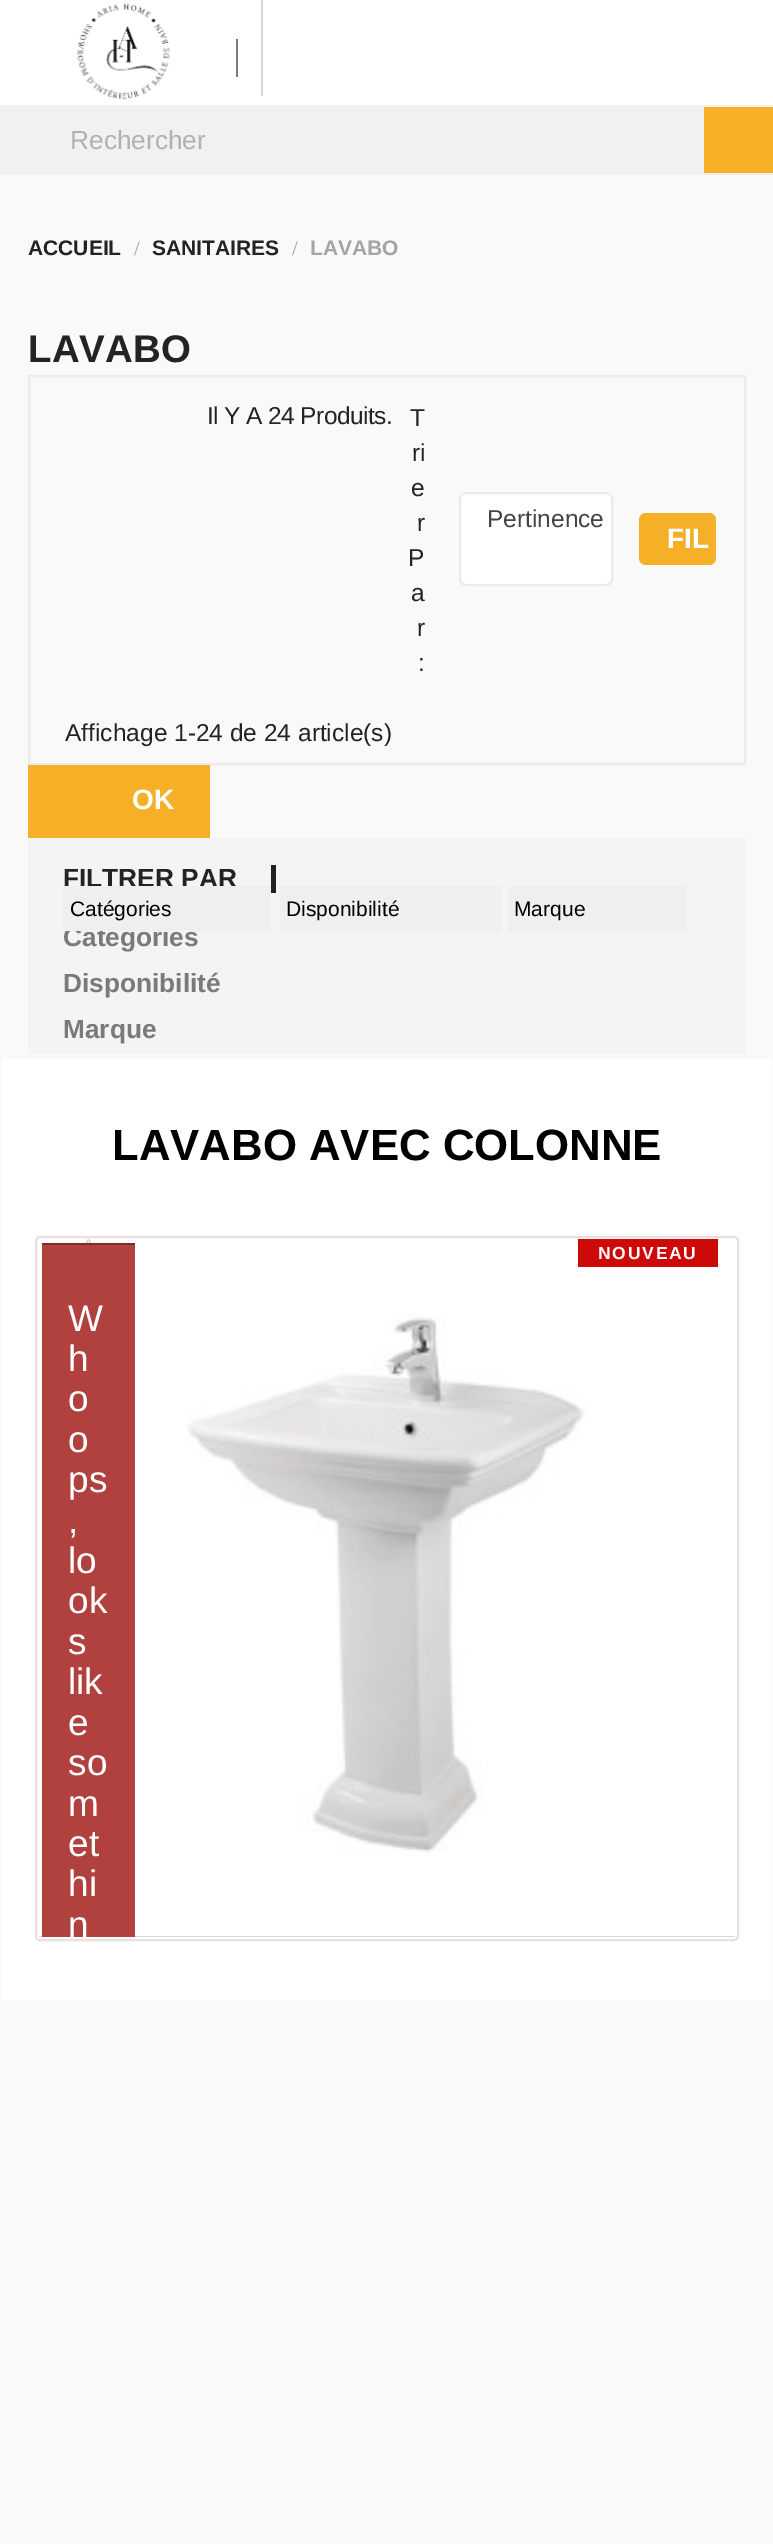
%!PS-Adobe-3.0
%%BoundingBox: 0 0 773 2544
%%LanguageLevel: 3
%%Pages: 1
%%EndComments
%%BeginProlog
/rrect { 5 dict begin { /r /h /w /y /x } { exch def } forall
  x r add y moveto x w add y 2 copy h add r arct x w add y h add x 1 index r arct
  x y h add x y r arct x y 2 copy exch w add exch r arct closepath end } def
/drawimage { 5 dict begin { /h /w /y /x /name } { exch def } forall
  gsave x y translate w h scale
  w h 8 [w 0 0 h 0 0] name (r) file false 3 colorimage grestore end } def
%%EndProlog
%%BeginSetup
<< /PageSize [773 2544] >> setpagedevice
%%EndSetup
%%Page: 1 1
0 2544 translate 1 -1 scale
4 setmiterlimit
0.976 setgray
0 0 773 2544 rectfill
1 setgray
0 0 773 105 rectfill
(images/1.raw) 77 3 93 97 drawimage
0.847 setgray
261 0 2 96 rectfill
0.478 setgray
236 39 2 38 rectfill
0.945 setgray
0 105 773 70 rectfill
0.961 0.69 0.153 setrgbcolor
704 107 69 66 rectfill
0.922 setgray
2 setlinewidth
29 376 716 388 rectstroke
1 setgray
460 493 152 92 6 rrect gsave fill grestore
0.922 setgray
stroke
0.961 0.69 0.153 setrgbcolor
639 513 77 52 7 rrect fill
28 765 182 73 rectfill
0.957 setgray
28 838 718 216 rectfill
0.133 setgray
271 865 5 28 rectfill
0.937 setgray
280 886 221 45 rectfill
508 886 178 45 rectfill
1 setgray
2 1059 770 941 rectfill
0.91 0.878 0.878 setrgbcolor
36 1237 702 703 4 rrect stroke
0.804 0.035 0.039 setrgbcolor
578 1239 140 28 rectfill
0.847 setgray
39 1936 696 1 rectfill
gsave
39 1239 696 698 rectclip
0.855 setgray
1.8 setlinewidth
newpath 88.5 1240 moveto 115.5 1240 137.5 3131.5 137.5 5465 curveto 137.5 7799 115.5 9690.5 88.5 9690.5 curveto 61.5 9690.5 39.5 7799 39.5 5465 curveto 39.5 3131.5 61.5 1240 88.5 1240 curveto closepath stroke
grestore
0.69 0.255 0.243 setrgbcolor
42 1245 93 692 rectfill
0.482 0.18 0.169 setrgbcolor
42 1243 93 2 rectfill
(images/2.raw) 187 1314 402 539 drawimage
/LiberationSans-Regular [26.25 0 0 -26.25 0 0] selectfont
0.694 setgray
70 149 moveto (Rechercher) show
/LiberationSans-Bold [21 0 0 -21 0 0] selectfont
0.137 setgray
28 255 moveto (ACCUEIL) show
/LiberationSerif-Regular [21 0 0 -21 0 0] selectfont
0.643 setgray
134 255 moveto (/) show
/LiberationSans-Bold [21 0 0 -21 0 0] selectfont
0.137 setgray
152 255 moveto (SANITAIRES) show
/LiberationSerif-Regular [21 0 0 -21 0 0] selectfont
0.643 setgray
292 255 moveto (/) show
/LiberationSans-Bold [21 0 0 -21 0 0] selectfont
310 255 moveto (LAVABO) show
/LiberationSans-Bold [38.5 0 0 -38.5 0 0] selectfont
0.137 setgray
28 362 moveto (LAVABO) show
/LiberationSans-Regular [24.5 0 0 -24.5 0 0] selectfont
207 424 moveto -0.6 0 (Il Y A 24 Produits.) ashow
410 426 moveto -0.6 0 (T) ashow
412 461 moveto -0.6 0 (ri) ashow
411 496 moveto -0.6 0 (e) ashow
417 531 moveto -0.6 0 (r) ashow
408 566 moveto -0.6 0 (P) ashow
411 601 moveto -0.6 0 (a) ashow
417 636 moveto -0.6 0 (r) ashow
418 671 moveto -0.6 0 (:) ashow
0.267 setgray
487 527 moveto (Pertinence) show
/LiberationSans-Bold [28 0 0 -28 0 0] selectfont
1 setgray
667 548 moveto (FIL) show
/LiberationSans-Regular [24.5 0 0 -24.5 0 0] selectfont
0.137 setgray
65 741 moveto (Affichage 1-24 de 24 article\(s\)) show
/LiberationSans-Bold [28 0 0 -28 0 0] selectfont
1 setgray
132 809 moveto (OK) show
/LiberationSans-Bold [26.25 0 0 -26.25 0 0] selectfont
0.137 setgray
63 887 moveto (FILTRER PAR) show
/LiberationSans-Regular [21 0 0 -21 0 0] selectfont
0 setgray
286 916 moveto (Disponibilité) show
514 916 moveto (Marque) show
/LiberationSans-Bold [26.25 0 0 -26.25 0 0] selectfont
0.478 setgray
63 946 moveto (Catégories) show
0.937 setgray
63 886 208 45 rectfill
/LiberationSans-Regular [21 0 0 -21 0 0] selectfont
0 setgray
70 916 moveto (Catégories) show
/LiberationSans-Bold [26.25 0 0 -26.25 0 0] selectfont
0.478 setgray
63 992 moveto (Disponibilité) show
63 1038 moveto (Marque) show
/LiberationSans-Bold [43.75 0 0 -43.75 0 0] selectfont
0 setgray
112 1160 moveto (LAVABO AVEC COLONNE) show
/LiberationSans-Bold [17.5 0 0 -17.5 0 0] selectfont
1 setgray
598 1259 moveto 1.75 0 (NOUVEAU) ashow
/LiberationSans-Regular [37 0 0 -37 0 0] selectfont
68 1331 moveto (W) show
68 1371 moveto (h) show
68 1411 moveto (o) show
68 1452 moveto (o) show
68 1492 moveto (ps) show
68 1533 moveto (,) show
68 1573 moveto (lo) show
68 1613 moveto (ok) show
68 1654 moveto (s) show
68 1694 moveto (lik) show
68 1735 moveto (e) show
68 1775 moveto (so) show
68 1816 moveto (m) show
68 1856 moveto (et) show
68 1896 moveto (hi) show
68 1937 moveto (n) show
showpage
%%EOF
